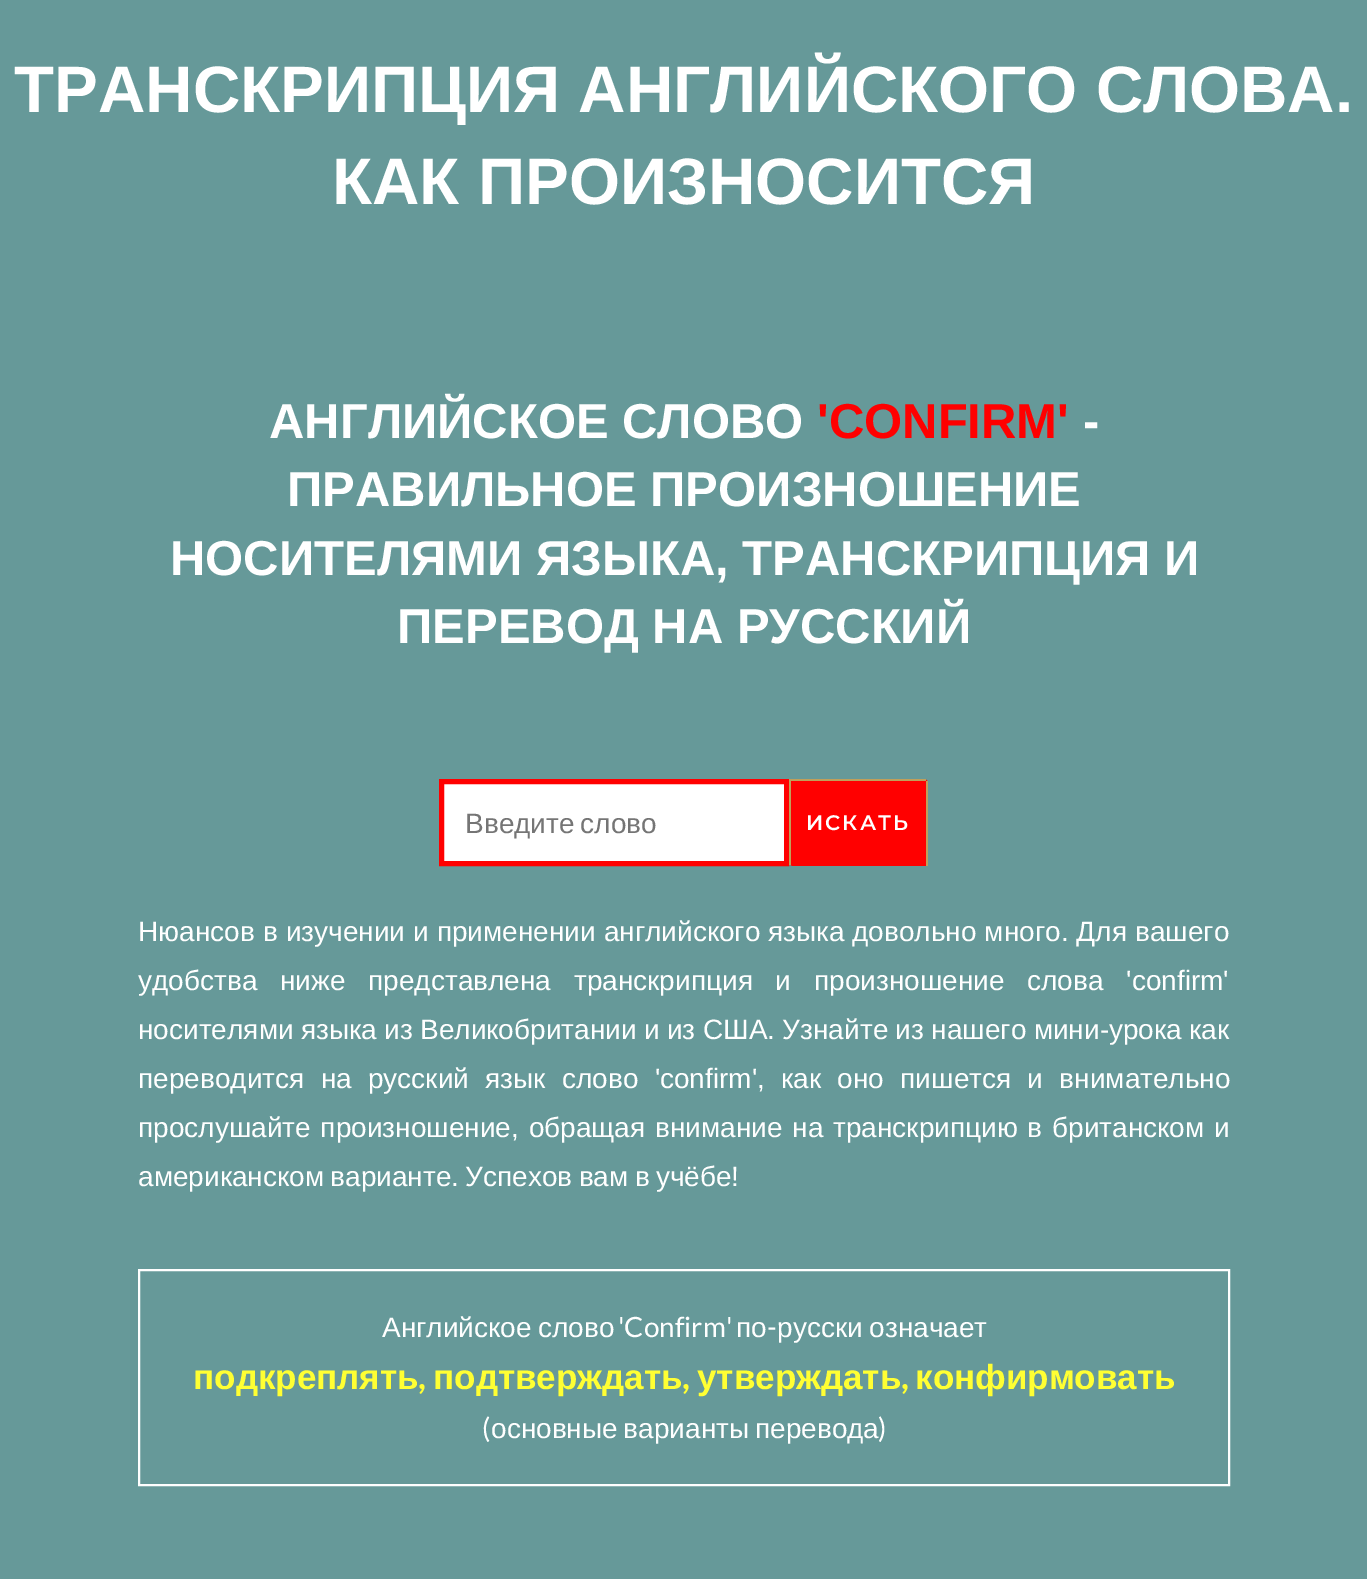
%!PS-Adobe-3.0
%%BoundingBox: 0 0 1367 1579
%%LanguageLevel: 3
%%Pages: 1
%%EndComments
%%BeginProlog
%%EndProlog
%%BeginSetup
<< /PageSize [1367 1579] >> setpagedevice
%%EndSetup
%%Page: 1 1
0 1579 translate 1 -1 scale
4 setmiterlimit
0.4 0.6 0.6 setrgbcolor
0 0 1367 1579 rectfill
1 setgray
newpath 441.5 781.5 moveto 786.5 781.5 lineto 786.5 863.5 lineto 441.5 863.5 lineto closepath gsave fill grestore
1 0 0 setrgbcolor
5 setlinewidth
stroke
newpath 789 779 moveto 924 779 lineto 926 779 928 781 928 783 curveto 928 866 lineto 793 866 lineto 791 866 789 864 789 862 curveto closepath fill
0.753 0.624 0.353 setrgbcolor
789 779 137 2 rectfill
926 781 2 85 rectfill
789 779 2 86 rectfill
1 setgray
2 setlinewidth
139 1270 1090 215 rectstroke
/LiberationSans-Bold [65.6 0 0 -65.6 0 0] selectfont
14 112 moveto (ТРАНСКРИПЦИЯ АНГЛИЙСКОГО СЛОВА.) show
332 204 moveto (КАК ПРОИЗНОСИТСЯ) show
/LiberationSans-Bold [49 0 0 -49 0 0] selectfont
269 438 moveto (АНГЛИЙСКОЕ СЛОВО) show
1 0 0 setrgbcolor
817 438 moveto ('CONFIRM') show
1 setgray
1083 438 moveto (-) show
287 506 moveto (ПРАВИЛЬНОЕ ПРОИЗНОШЕНИЕ) show
170 575 moveto (НОСИТЕЛЯМИ ЯЗЫКА, ТРАНСКРИПЦИЯ И) show
397 643 moveto (ПЕРЕВОД НА РУССКИЙ) show
/LiberationSans-Regular [28 0 0 -28 0 0] selectfont
0.459 setgray
465 833 moveto -2 0 32 (Введите слово) widthshow
/Montserrat-SemiBold [21 0 0 -21 0 0] selectfont
1 setgray
806 830 moveto 2 0 (ИСКАТЬ) ashow
/LiberationSans-Regular [28 0 0 -28 0 0] selectfont
138 941 moveto 0.25 0 32 (Нюансов в изучении и применении английского языка довольно много. Для вашего) widthshow
138 990 moveto 15 0 32 (удобства ниже представлена транскрипция и произношение слова 'confirm') widthshow
138 1039 moveto -0.4 0 32 (носителями языка из Великобритании и из США. Узнайте из нашего мини-урока как) widthshow
138 1088 moveto 8.5 0 32 (переводится на русский язык слово 'confirm', как оно пишется и внимательно) widthshow
138 1137 moveto 2 0 32 (прослушайте произношение, обращая внимание на транскрипцию в британском и) widthshow
138 1186 moveto -1.5 0 32 (американском варианте. Успехов вам в учёбе!) widthshow
382 1337 moveto -1 0 32 (Английское слово) widthshow
/Lato-Regular [28 0 0 -28 0 0] selectfont
618 1337 moveto ('Confirm') show
/LiberationSans-Regular [28 0 0 -28 0 0] selectfont
736 1337 moveto (по) show
/Lato-Regular [28 0 0 -28 0 0] selectfont
767 1337 moveto (-) show
/LiberationSans-Regular [28 0 0 -28 0 0] selectfont
777 1337 moveto -1 0 32 (русски означает) widthshow
/LiberationSans-Bold [35 0 0 -35 0 0] selectfont
1 1 0.2 setrgbcolor
193 1389 moveto (подкреплять) show
/Lato-Bold [35 0 0 -35 0 0] selectfont
418 1389 moveto (,) show
/LiberationSans-Bold [35 0 0 -35 0 0] selectfont
433 1389 moveto (подтверждать) show
/Lato-Bold [35 0 0 -35 0 0] selectfont
682 1389 moveto (,) show
/LiberationSans-Bold [35 0 0 -35 0 0] selectfont
697 1389 moveto (утверждать) show
/Lato-Bold [35 0 0 -35 0 0] selectfont
901 1389 moveto (,) show
/LiberationSans-Bold [35 0 0 -35 0 0] selectfont
915 1389 moveto (конфирмовать) show
/Lato-Regular [28 0 0 -28 0 0] selectfont
1 setgray
482 1438 moveto (\() show
/LiberationSans-Regular [28 0 0 -28 0 0] selectfont
491 1438 moveto -2 0 32 (основные варианты перевода) widthshow
/Lato-Regular [28 0 0 -28 0 0] selectfont
878 1438 moveto (\)) show
showpage
%%EOF
